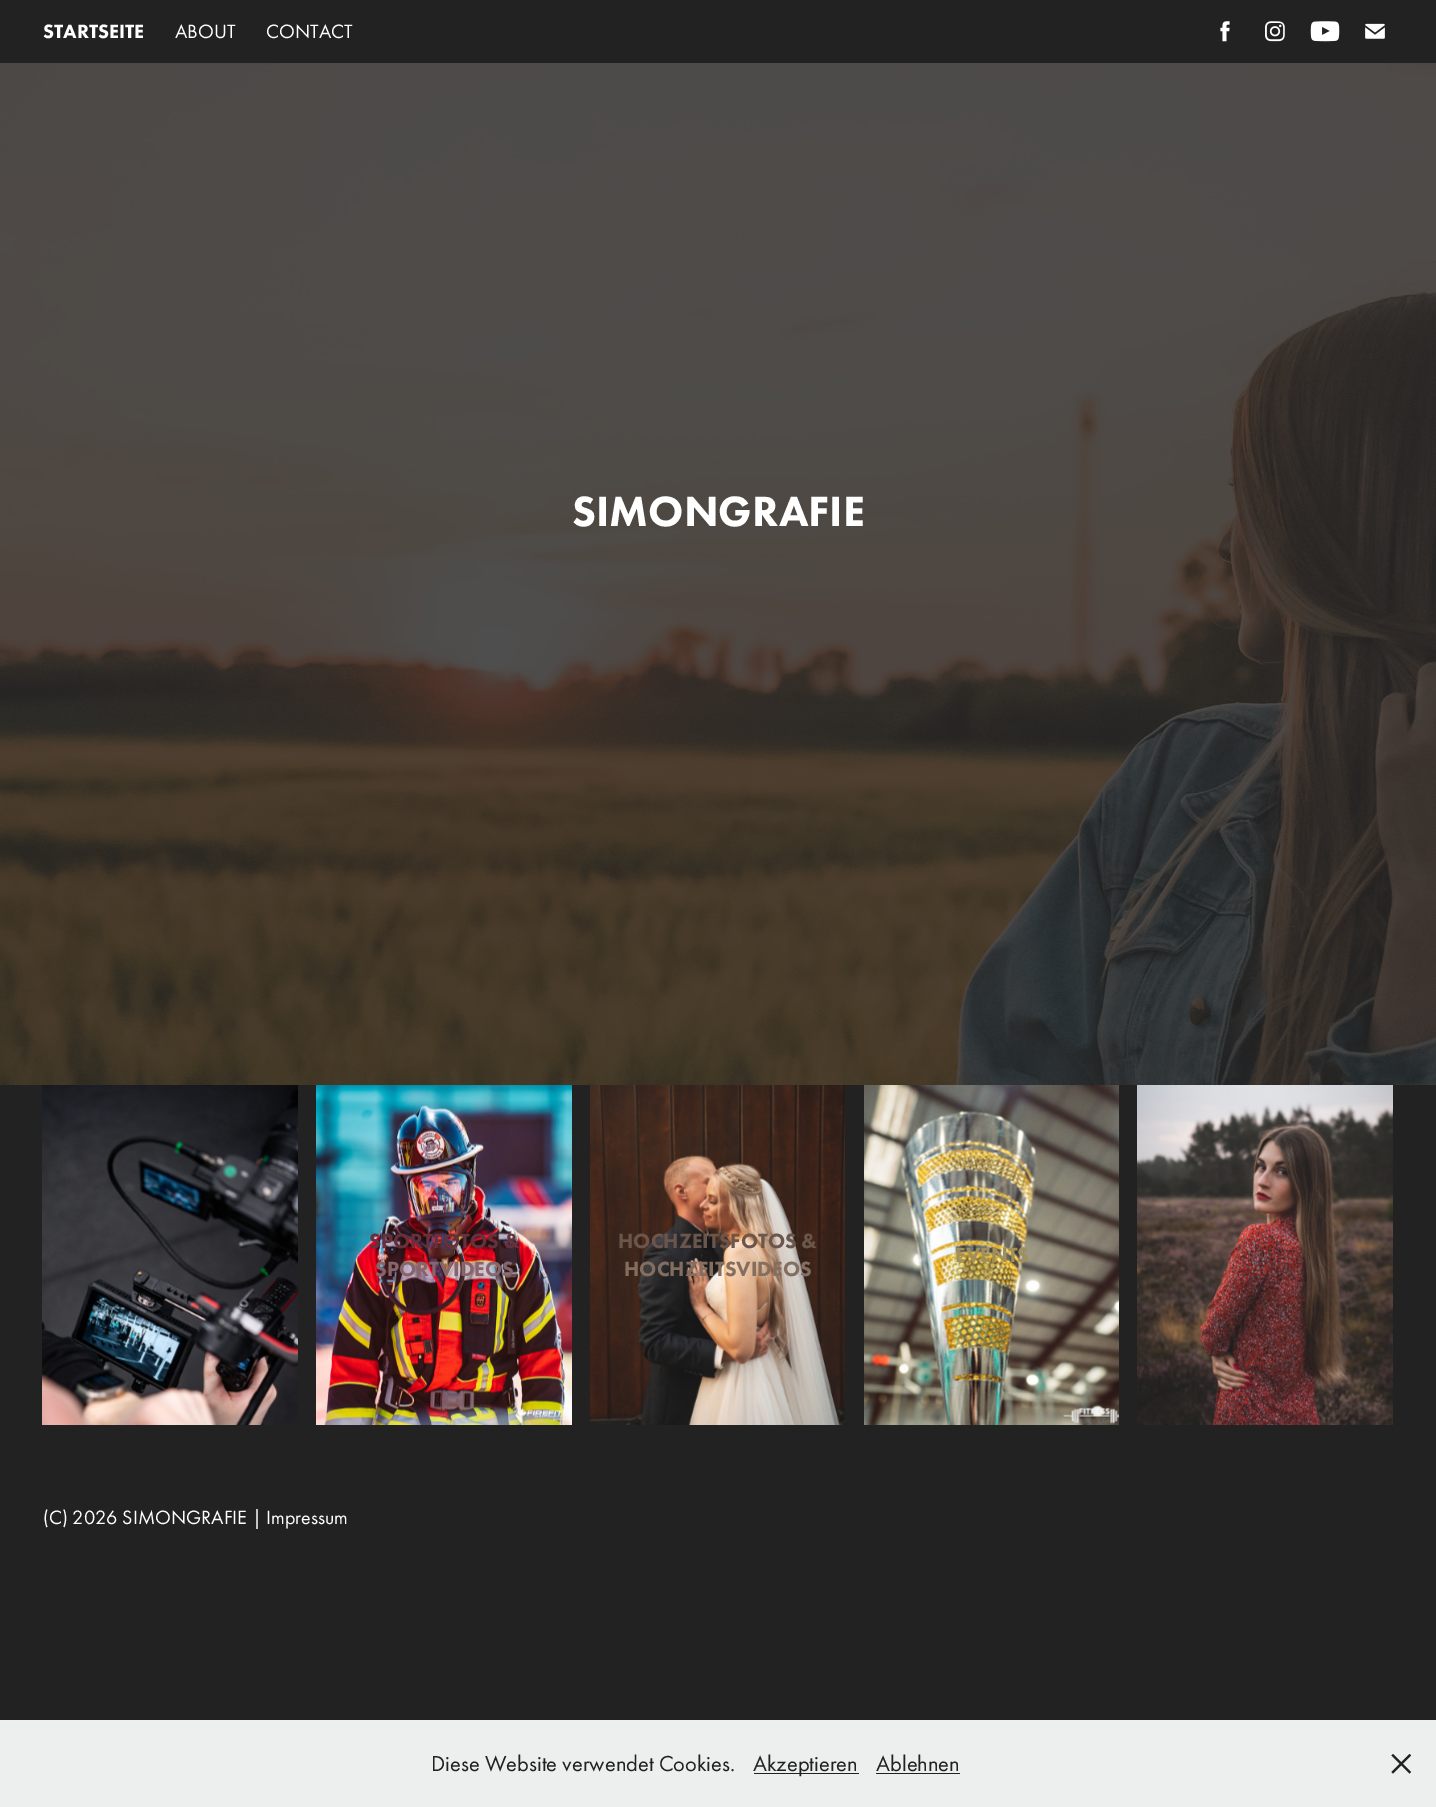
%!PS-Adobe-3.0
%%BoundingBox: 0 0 1436 1807
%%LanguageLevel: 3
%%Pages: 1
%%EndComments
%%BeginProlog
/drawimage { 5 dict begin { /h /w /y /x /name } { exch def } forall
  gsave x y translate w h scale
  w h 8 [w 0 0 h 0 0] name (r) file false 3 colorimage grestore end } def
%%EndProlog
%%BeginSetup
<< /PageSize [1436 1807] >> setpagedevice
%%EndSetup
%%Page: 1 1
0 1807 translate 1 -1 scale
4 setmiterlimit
0.133 setgray
0 0 1436 1807 rectfill
(images/1.raw) 1220 21 10 21 drawimage
(images/2.raw) 1265 21 20 21 drawimage
(images/3.raw) 1310 21 30 21 drawimage
(images/4.raw) 1365 23 20 16 drawimage
(images/5.raw) 0 63 1436 1022 drawimage
(images/6.raw) 42 1085 256 340 drawimage
(images/7.raw) 316 1085 256 340 drawimage
(images/8.raw) 590 1085 255 340 drawimage
(images/9.raw) 864 1085 255 340 drawimage
(images/10.raw) 1137 1085 256 340 drawimage
0.929 0.933 0.933 setrgbcolor
0 1720 1436 87 rectfill
0.129 setgray
754 1773 105 1 rectfill
876 1773 84 1 rectfill
(images/11.raw) 1391 1754 20 20 drawimage
/FuturaPT-Black [20 0 0 -20 0 0] selectfont
1 setgray
43 38 moveto (STARTSEITE) show
/FuturaPT-Regular [20 0 0 -20 0 0] selectfont
175 38 moveto (ABOUT) show
266 38 moveto (CONTACT) show
/FuturaPT-Black [43.75 0 0 -43.75 0 0] selectfont
572 526 moveto (SIMONGRAFIE) show
/FuturaPT-Black [21.25 0 0 -21.25 0 0] selectfont
0.396 0.192 0.235 setrgbcolor
369 1248 moveto (SPORTFOTOS &) show
0.529 0.396 0.42 setrgbcolor
375 1276 moveto (SPORTVIDEOS) show
0.42 0.337 0.294 setrgbcolor
618 1248 moveto (HOCHZEITSFOTOS &) show
0.518 0.431 0.376 setrgbcolor
624 1276 moveto (HOCHZEITSVIDEOS) show
0.631 0.565 0.361 setrgbcolor
955 1262 moveto (EVENTS) show
/FuturaPT-Regular [20 0 0 -20 0 0] selectfont
1 setgray
43 1524 moveto (\(C\) 2026 SIMONGRAFIE | Impressum) show
/FuturaPT-Regular [22.5 0 0 -22.5 0 0] selectfont
0.129 setgray
431 1771 moveto (Diese Website verwendet Cookies.) show
753 1771 moveto (Akzeptieren) show
876 1771 moveto (Ablehnen) show
showpage
%%EOF
